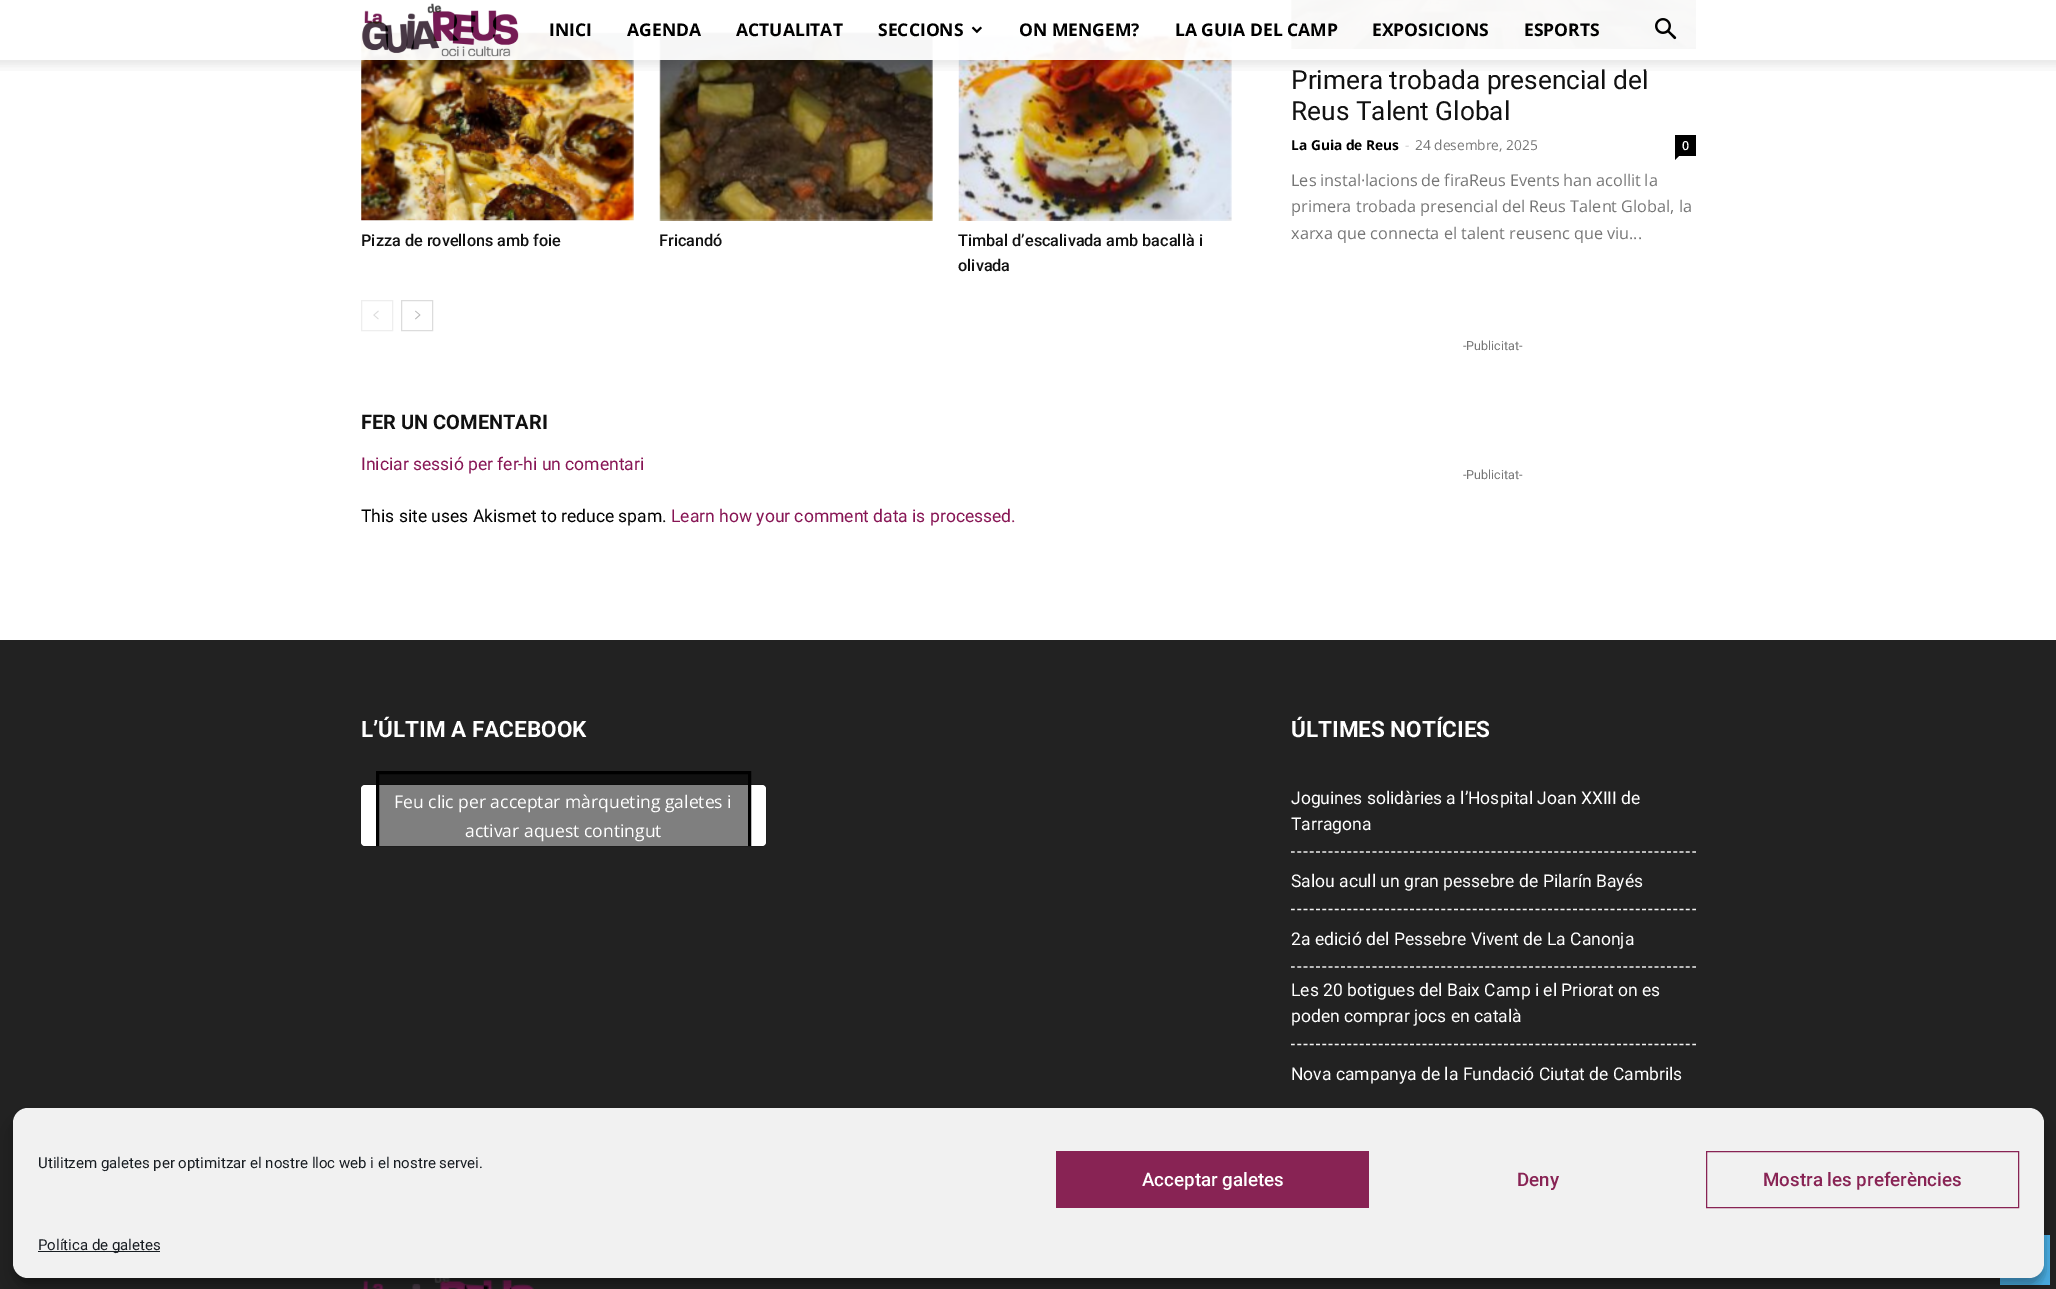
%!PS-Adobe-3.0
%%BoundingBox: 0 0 2056 1289
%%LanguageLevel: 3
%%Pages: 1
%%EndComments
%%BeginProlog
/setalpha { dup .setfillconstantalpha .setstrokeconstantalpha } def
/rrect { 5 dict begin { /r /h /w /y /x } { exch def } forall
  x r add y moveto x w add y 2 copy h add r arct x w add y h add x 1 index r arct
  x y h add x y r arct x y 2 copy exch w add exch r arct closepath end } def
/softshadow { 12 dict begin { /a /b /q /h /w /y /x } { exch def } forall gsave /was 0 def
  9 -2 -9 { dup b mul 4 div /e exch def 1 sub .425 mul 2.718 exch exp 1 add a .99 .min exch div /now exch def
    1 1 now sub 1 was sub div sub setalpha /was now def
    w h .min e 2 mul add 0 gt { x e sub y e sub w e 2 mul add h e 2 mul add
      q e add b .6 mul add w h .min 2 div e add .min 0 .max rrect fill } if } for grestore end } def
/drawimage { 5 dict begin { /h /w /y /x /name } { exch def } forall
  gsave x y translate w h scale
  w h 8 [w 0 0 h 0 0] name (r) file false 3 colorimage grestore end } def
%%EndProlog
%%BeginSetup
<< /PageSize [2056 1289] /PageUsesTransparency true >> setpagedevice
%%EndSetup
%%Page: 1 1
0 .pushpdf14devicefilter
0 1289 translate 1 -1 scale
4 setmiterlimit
1 setgray
0 0 2056 1289 rectfill
(images/5.raw) 361 32 273 189 drawimage
(images/6.raw) 659 32 274 189 drawimage
(images/7.raw) 958 32 274 189 drawimage
(images/10.raw) 1291 0 405 49 drawimage
0.95 setalpha
361 0 1335 60 rectfill
1 setalpha
(images/1.raw) 362 3 157 54 drawimage
(images/2.raw) 971 26 11 8 drawimage
(images/3.raw) 1655 18 22 22 drawimage
0.933 setgray
361.5 300.5 31 30 rectstroke
(images/8.raw) 373 310 6 10 drawimage
0.863 setgray
401.5 300.5 31 30 rectstroke
(images/9.raw) 415 310 6 10 drawimage
0 setgray
1675 135 21 21 rectfill
newpath 1675 156 moveto 1679 156 lineto 1675 160 lineto closepath fill
0.133 setgray
0 640 2056 649 rectfill
0 setgray
361 785 405 61 4 0.5 0.5 softshadow
1 setgray
361 785 405 61 4 rrect fill
0.5 setalpha
0 setgray
379 774 369 72 rectfill
gsave
361 709 405 137 rectclip
1 setalpha
3 setlinewidth
377.5 772.5 372 85 rectstroke
grestore
1 setalpha
0.945 setgray
1.2 setlinewidth
[3.75 2.52] 0 setdash
newpath 1291 852 moveto 1696 852 lineto stroke
newpath 1291 909.5 moveto 1696 909.5 lineto stroke
newpath 1291 967 moveto 1696 967 lineto stroke
newpath 1291 1044.5 moveto 1696 1044.5 lineto stroke
(images/11.raw) 363 1278 171 11 drawimage
0.302 0.698 0.925 setrgbcolor
2000 1235 50 50 rectfill
0 setgray
13 1115 2031 170 15 4 0.23 softshadow
13 1120 2031 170 15 12.5 0.19 softshadow
0.945 setgray
13 1108 2031 170 15 rrect fill
0.533 0.137 0.329 setrgbcolor
1056 1151 313 57 rectfill
1 setlinewidth
[] 0 setdash
1706.5 1151.5 312 56 rectstroke
0.098 0.118 0.137 setrgbcolor
38 1251 122 1 rectfill
/OpenSans-Bold [17.5 0 0 -17.5 0 0] selectfont
0 setgray
549 36 moveto (INICI) show
627 36 moveto (AGENDA) show
736 36 moveto (ACTUALITAT) show
878 36 moveto (SECCIONS) show
1019 36 moveto (ON MENGEM?) show
1175 36 moveto (LA GUIA DEL CAMP) show
1372 36 moveto (EXPOSICIONS) show
1524 36 moveto (ESPORTS) show
/Roboto-Medium [16.25 0 0 -16.25 0 0] selectfont
0.067 setgray
361 246 moveto (Pizza de rovellons amb foie) show
659 246 moveto (Fricandó) show
958 246 moveto (Timbal d’escalivada amb bacallà i) show
958 271 moveto (olivada) show
/Roboto-Bold [20 0 0 -20 0 0] selectfont
361 429 moveto (FER UN COMENTARI) show
/Roboto-Regular [17.5 0 0 -17.5 0 0] selectfont
0.529 0.082 0.329 setrgbcolor
361 470 moveto (Iniciar sessió per fer-hi un comentari) show
0 setgray
361 522 moveto (This site uses Akismet to reduce spam.) show
0.529 0.082 0.329 setrgbcolor
671 522 moveto (Learn how your comment data is processed.) show
/Roboto-Regular [26.25 0 0 -26.25 0 0] selectfont
0.067 setgray
1291 89 moveto (Primera trobada presencial del) show
(images/4.raw) 0 60 2056 11 drawimage
1291 120 moveto (Reus Talent Global) show
/OpenSans-Bold [13.75 0 0 -13.75 0 0] selectfont
0 setgray
1291 150 moveto (La Guia de Reus) show
/OpenSans-Regular [13.75 0 0 -13.75 0 0] selectfont
0.8 setgray
1405 150 moveto (-) show
0.463 setgray
1415 150 moveto (24 desembre, 2025) show
/OpenSans-SemiBold [12.5 0 0 -12.5 0 0] selectfont
1 setgray
1682 150 moveto (0) show
/OpenSans-Regular [16.25 0 0 -16.25 0 0] selectfont
0.463 setgray
1291 186 moveto -0.5 0 32 (Les instal·lacions de firaReus Events han acollit la) widthshow
1291 212 moveto (primera trobada presencial del Reus Talent Global, la) show
1291 239 moveto (xarxa que connecta el talent reusenc que viu...) show
/Roboto-Regular [12.5 0 0 -12.5 0 0] selectfont
1463 350 moveto (-Publicitat-) show
1463 479 moveto (-Publicitat-) show
/Roboto-Bold [22.5 0 0 -22.5 0 0] selectfont
1 setgray
361 737 moveto (L’ÚLTIM A FACEBOOK) show
/OpenSans-Regular [17.5 0 0 -17.5 0 0] selectfont
394 808 moveto (Feu clic per acceptar màrqueting galetes i) show
465 837 moveto (activar aquest contingut) show
/Roboto-Bold [22.5 0 0 -22.5 0 0] selectfont
1291 737 moveto (ÚLTIMES NOTÍCIES) show
/Roboto-Regular [17.5 0 0 -17.5 0 0] selectfont
1291 804 moveto (Joguines solidàries a l’Hospital Joan XXIII de) show
1291 830 moveto (Tarragona) show
1291 887 moveto (Salou acull un gran pessebre de Pilarín Bayés) show
1291 945 moveto (2a edició del Pessebre Vivent de La Canonja) show
1291 996 moveto (Les 20 botigues del Baix Camp i el Priorat on es) show
1291 1022 moveto (poden comprar jocs en català) show
1291 1080 moveto (Nova campanya de la Fundació Ciutat de Cambrils) show
/Roboto-Regular [15 0 0 -15 0 0] selectfont
0.098 0.118 0.137 setrgbcolor
38 1168 moveto (Utilitzem galetes per optimitzar el nostre lloc web i el nostre servei.) show
/Roboto-Medium [18.75 0 0 -18.75 0 0] selectfont
1 setgray
1142 1186 moveto (Acceptar galetes) show
0.533 0.137 0.329 setrgbcolor
1517 1186 moveto (Deny) show
1763 1186 moveto (Mostra les preferències) show
/Roboto-Regular [15 0 0 -15 0 0] selectfont
0.098 0.118 0.137 setrgbcolor
38 1250 moveto (Política de galetes) show
.poppdf14devicefilter showpage
%%EOF
